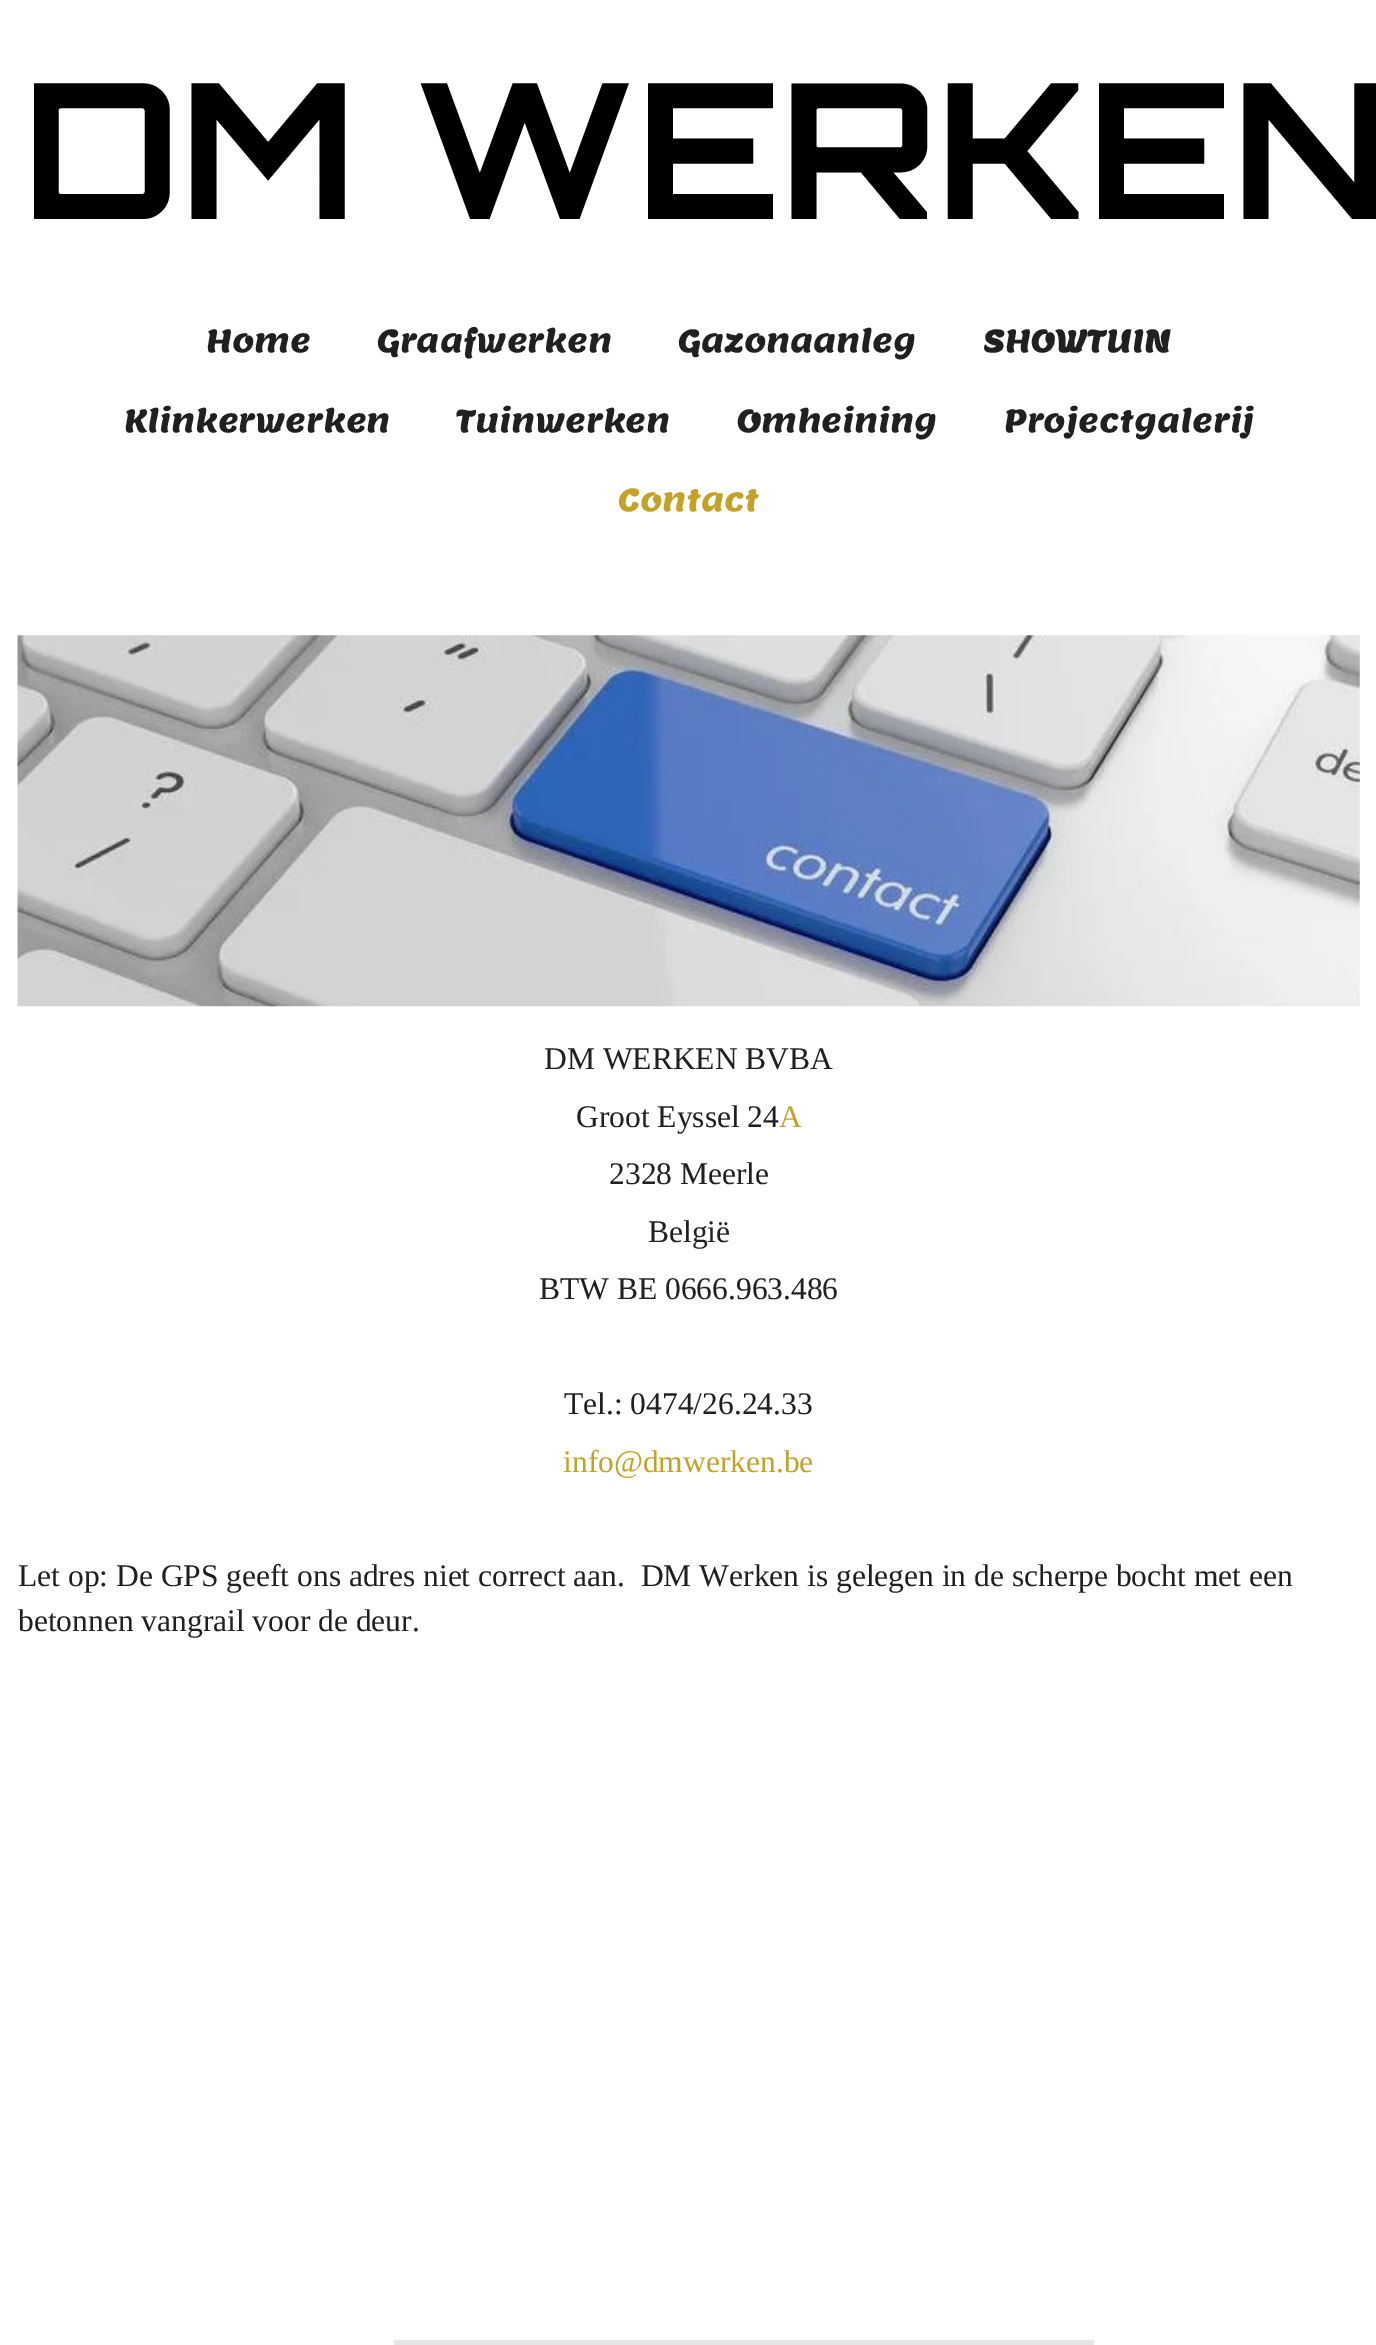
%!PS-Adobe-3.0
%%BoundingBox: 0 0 1376 2345
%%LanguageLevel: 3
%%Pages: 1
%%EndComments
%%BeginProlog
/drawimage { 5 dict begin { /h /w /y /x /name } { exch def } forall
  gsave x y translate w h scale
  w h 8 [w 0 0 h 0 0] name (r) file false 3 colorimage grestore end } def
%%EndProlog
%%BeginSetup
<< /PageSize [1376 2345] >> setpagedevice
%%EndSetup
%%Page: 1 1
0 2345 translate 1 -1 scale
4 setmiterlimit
1 setgray
0 0 1376 2345 rectfill
(images/1.raw) 17 635 1343 372 drawimage
0.902 setgray
394 2340 700 5 rectfill
/Orbitron-Bold [189 0 0 -189 0 0] selectfont
0 setgray
23 219 moveto (DM WERKEN) show
/Lemon-Regular [31.5 0 0 -31.5 0 0] selectfont
0.125 setgray
206 352 moveto (Home) show
377 352 moveto (Graafwerken) show
678 352 moveto (Gazonaanleg) show
983 352 moveto (SHOWTUIN) show
124 432 moveto (Klinkerwerken) show
456 432 moveto (Tuinwerken) show
737 432 moveto (Omheining) show
1004 432 moveto (Projectgalerij) show
0.769 0.631 0.153 setrgbcolor
618 511 moveto (Contact) show
/LiberationSerif-Regular [31.5 0 0 -31.5 0 0] selectfont
0.125 setgray
544 1069 moveto (DM WERKEN BVBA) show
576 1127 moveto (Groot Eyssel 24) show
0.769 0.631 0.153 setrgbcolor
779 1127 moveto (A) show
0.125 setgray
609 1184 moveto (2328 Meerle) show
648 1242 moveto (België) show
539 1299 moveto (BTW BE 0666.963.486) show
564 1414 moveto (Tel.: 0474/26.24.33) show
0.769 0.631 0.153 setrgbcolor
563 1472 moveto (info@dmwerken.be) show
0.125 setgray
18 1586 moveto (Let op: De GPS geeft ons adres niet correct aan.  DM Werken is gelegen in de scherpe bocht met een) show
18 1631 moveto (betonnen vangrail voor de deur.) show
showpage
%%EOF
